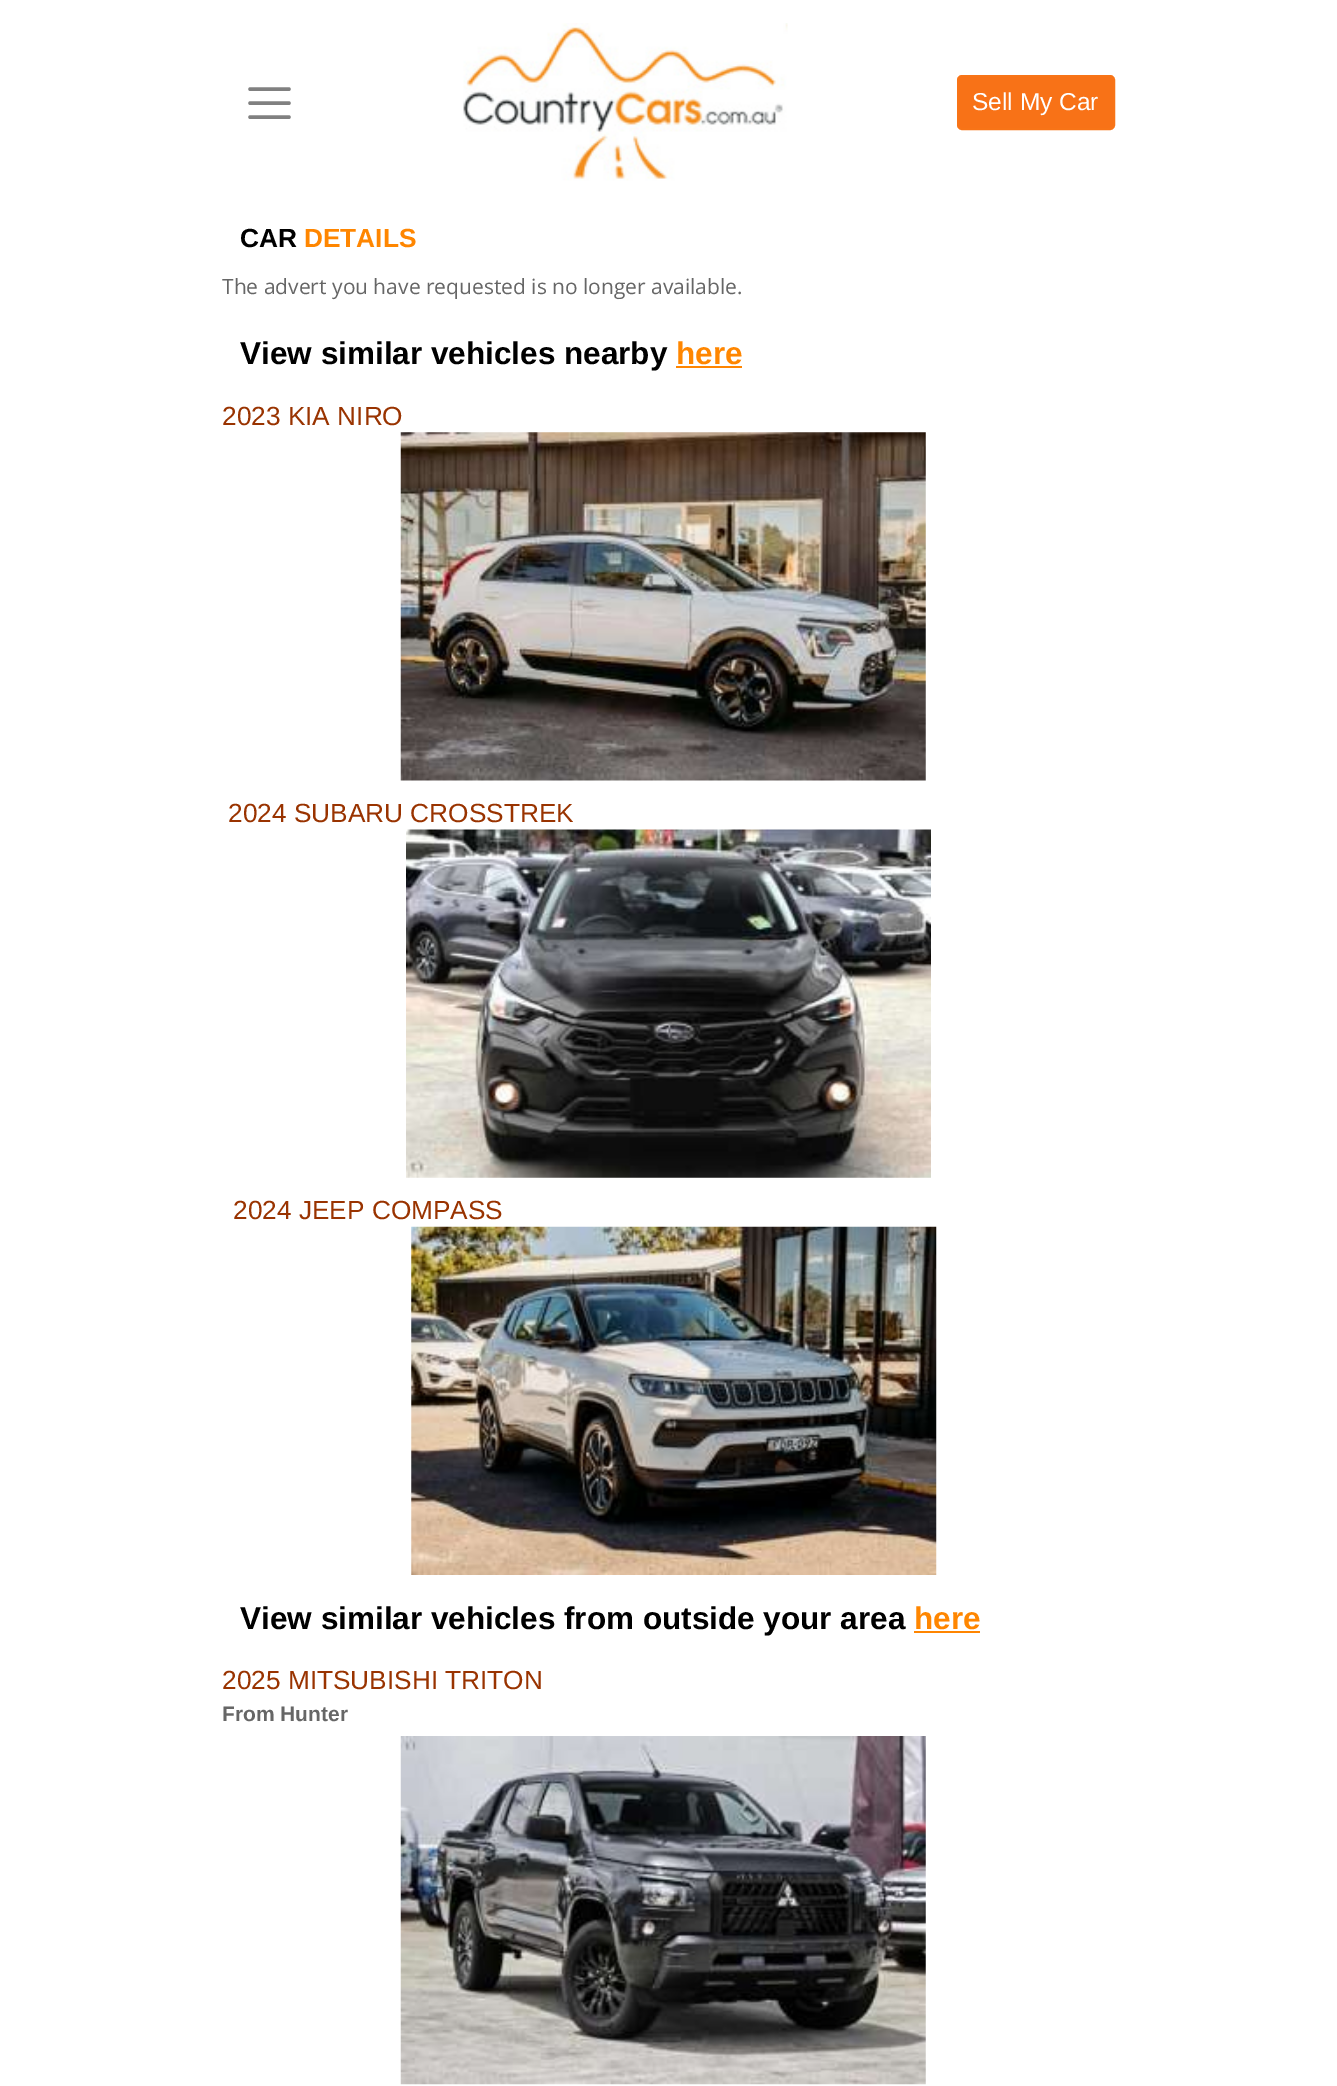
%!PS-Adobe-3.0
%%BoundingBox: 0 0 1337 2086
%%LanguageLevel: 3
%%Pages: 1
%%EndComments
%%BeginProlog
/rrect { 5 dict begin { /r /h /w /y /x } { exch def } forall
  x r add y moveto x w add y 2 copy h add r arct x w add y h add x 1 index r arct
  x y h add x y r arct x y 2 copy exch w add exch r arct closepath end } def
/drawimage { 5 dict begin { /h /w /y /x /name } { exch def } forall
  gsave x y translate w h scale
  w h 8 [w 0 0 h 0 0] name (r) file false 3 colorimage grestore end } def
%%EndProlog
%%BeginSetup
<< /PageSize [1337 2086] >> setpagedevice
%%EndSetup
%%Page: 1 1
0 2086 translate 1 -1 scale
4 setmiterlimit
1 setgray
0 0 1337 2086 rectfill
0.502 setgray
3.5 setlinewidth
1 setlinecap
newpath 250 89 moveto 289 89 lineto 250 103 moveto 289 103 lineto 250 117 moveto 289 117 lineto stroke
(images/1.raw) 463 23 325 158 drawimage
0.973 0.447 0.09 setrgbcolor
958 76 156 53 4 rrect gsave fill grestore
0.973 0.455 0.09 setrgbcolor
2 setlinewidth
0 setlinecap
stroke
1 0.522 0 setrgbcolor
676 366 66 2 rectfill
(images/2.raw) 400 432 526 349 drawimage
(images/3.raw) 406 829 525 349 drawimage
(images/4.raw) 411 1226 526 349 drawimage
914 1631 66 2 rectfill
(images/5.raw) 400 1736 526 349 drawimage
/LiberationSans-Regular [24.5 0 0 -24.5 0 0] selectfont
1 setgray
972 110 moveto (Sell My Car) show
/LiberationSans-Bold [26.25 0 0 -26.25 0 0] selectfont
0 setgray
240 247 moveto (CAR) show
1 0.525 0 setrgbcolor
304 247 moveto (DETAILS) show
/OpenSans-Regular [21 0 0 -21 0 0] selectfont
0.4 setgray
222 294 moveto (The advert you have requested is no longer available.) show
/LiberationSans-Bold [31.5 0 0 -31.5 0 0] selectfont
0 setgray
240 364 moveto (View similar vehicles nearby) show
1 0.525 0 setrgbcolor
676 364 moveto (here) show
/LiberationSans-Regular [26.25 0 0 -26.25 0 0] selectfont
0.6 0.2 0 setrgbcolor
222 425 moveto (2023 KIA NIRO) show
228 822 moveto (2024 SUBARU CROSSTREK) show
233 1219 moveto (2024 JEEP COMPASS) show
/LiberationSans-Bold [31.5 0 0 -31.5 0 0] selectfont
0 setgray
240 1629 moveto (View similar vehicles from outside your area) show
1 0.525 0 setrgbcolor
914 1629 moveto (here) show
/LiberationSans-Regular [26.25 0 0 -26.25 0 0] selectfont
0.6 0.2 0 setrgbcolor
222 1689 moveto (2025 MITSUBISHI TRITON) show
/LiberationSans-Bold [21 0 0 -21 0 0] selectfont
0.4 setgray
222 1721 moveto (From Hunter) show
showpage
%%EOF
